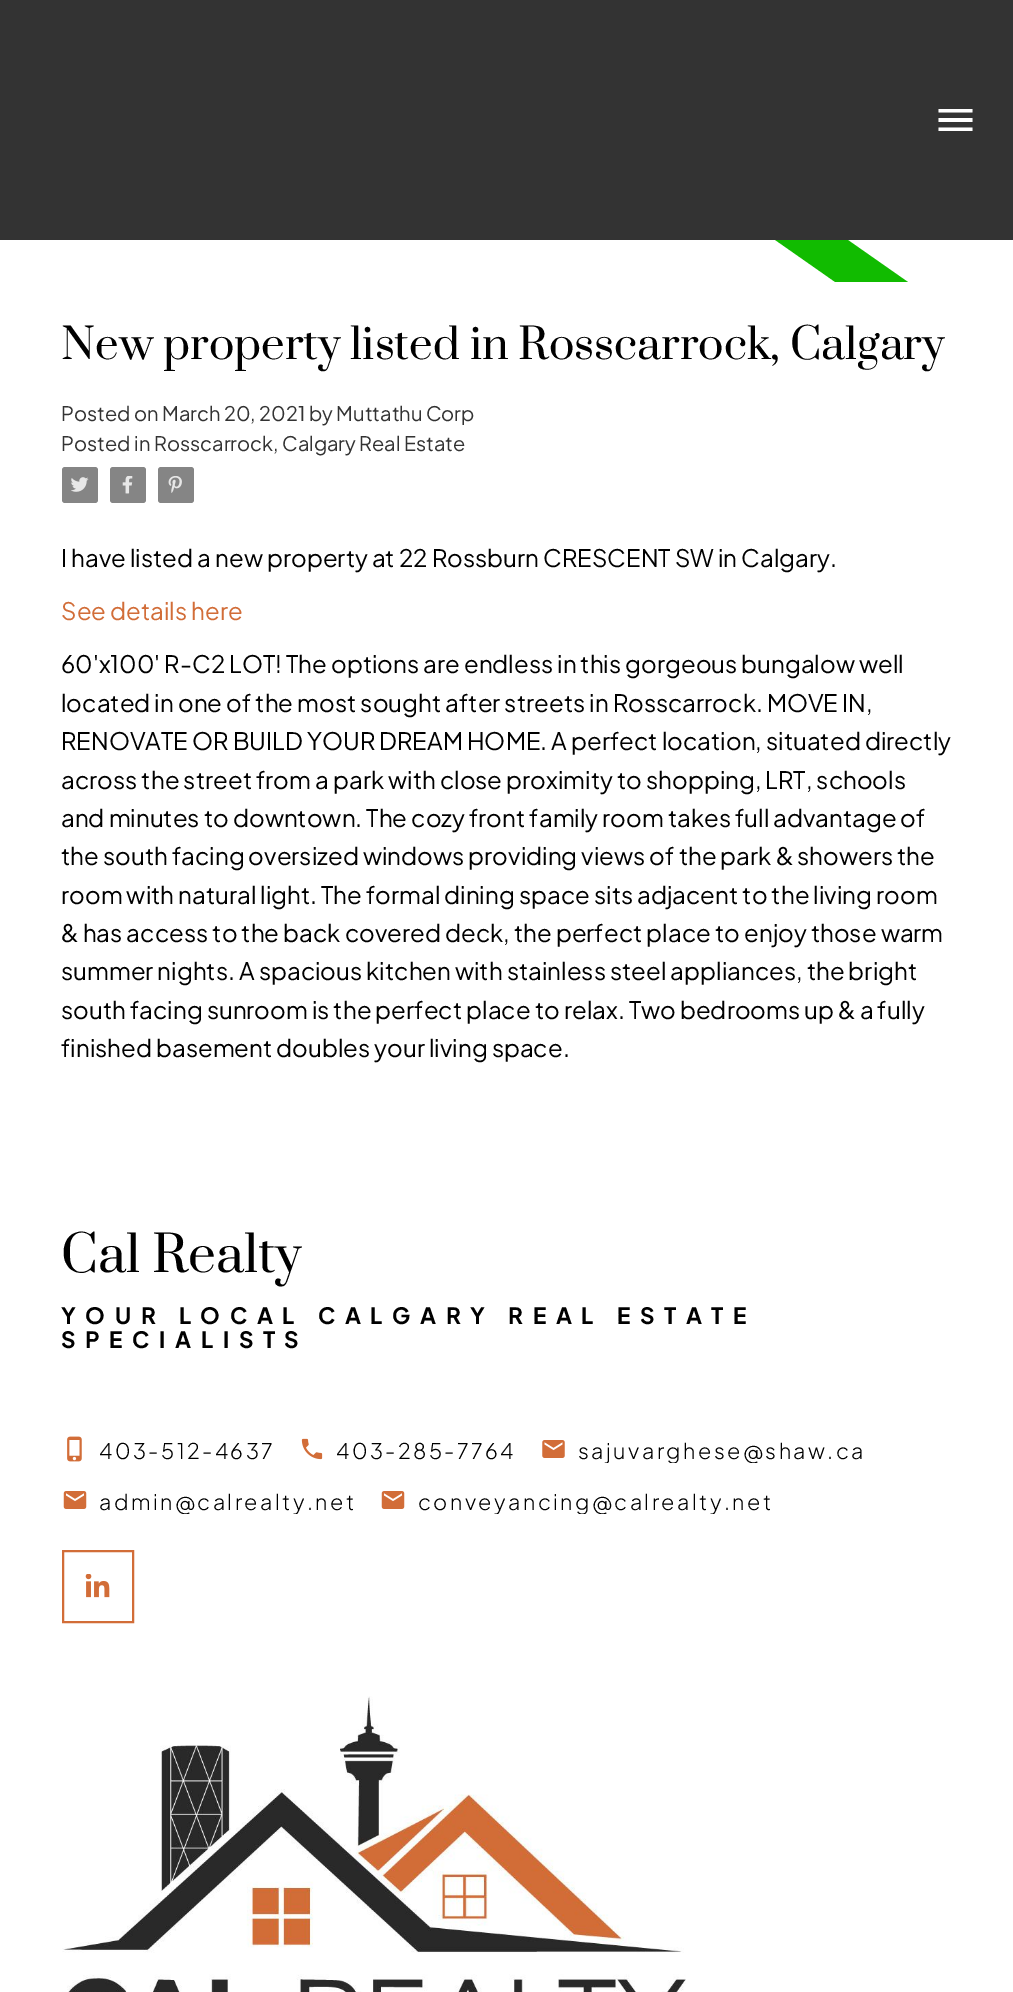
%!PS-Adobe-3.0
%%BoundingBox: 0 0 1013 1992
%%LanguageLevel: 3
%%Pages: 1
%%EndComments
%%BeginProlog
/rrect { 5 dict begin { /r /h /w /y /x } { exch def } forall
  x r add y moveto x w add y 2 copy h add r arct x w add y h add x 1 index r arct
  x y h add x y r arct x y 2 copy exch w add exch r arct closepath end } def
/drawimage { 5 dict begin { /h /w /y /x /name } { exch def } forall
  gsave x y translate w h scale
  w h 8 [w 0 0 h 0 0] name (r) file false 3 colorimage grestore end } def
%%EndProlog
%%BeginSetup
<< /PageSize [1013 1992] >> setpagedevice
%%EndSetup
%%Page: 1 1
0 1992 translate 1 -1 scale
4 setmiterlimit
1 setgray
0 0 1013 1992 rectfill
0.2 setgray
0 0 1013 240 rectfill
1 setgray
newpath 938.5 131 moveto 972.5 131 lineto 972.5 127.5 lineto 938.5 127.5 lineto closepath 938.5 122 moveto 972.5 122 lineto 972.5 118 lineto 938.5 118 lineto closepath 938.5 109 moveto 938.5 112.5 lineto 972.5 112.5 lineto 972.5 109 lineto closepath fill
gsave
0 240 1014 42 rectclip
0.067 0.733 0 setrgbcolor
newpath 775 189 moveto 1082 404 lineto 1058 438 lineto 751 223 lineto closepath fill
grestore
0.522 setgray
62 467 36 36 3 rrect fill
(images/1.raw) 71 477 18 15 drawimage
110 467 36 36 3 rrect fill
(images/2.raw) 122 476 11 18 drawimage
158 467 36 36 3 rrect fill
(images/3.raw) 168 476 14 17 drawimage
(images/4.raw) 67 1436 15 26 drawimage
(images/5.raw) 301 1438 22 22 drawimage
(images/6.raw) 542 1440 23 18 drawimage
(images/7.raw) 63 1491 24 18 drawimage
(images/7.raw) 381 1491 24 18 drawimage
0.824 0.427 0.22 setrgbcolor
2 setlinewidth
63 1551 70 71 rectstroke
(images/8.raw) 85 1574 25 24 drawimage
(images/9.raw) 62 1696 624 296 drawimage
/Prata-Regular [42 0 0 -42 0 0] selectfont
0 setgray
61 359 moveto (New property listed in Rosscarrock, Calgary) show
/PlusJakartaSans-Regular [20 0 0 -20 0 0] selectfont
0.2 setgray
61 421 moveto (Posted on March 20, 2021) show
309 421 moveto (by Muttathu Corp) show
61 451 moveto (Posted in) show
154 451 moveto (Rosscarrock, Calgary Real Estate) show
/PlusJakartaSans-Regular [24 0 0 -24 0 0] selectfont
0 setgray
61 567 moveto (I have listed a new property at 22 Rossburn CRESCENT SW in Calgary.) show
0.824 0.427 0.22 setrgbcolor
61 620 moveto (See details here) show
0 setgray
61 673 moveto (60'x100' R-C2 LOT! The options are endless in this gorgeous bungalow well) show
61 712 moveto (located in one of the most sought after streets in Rosscarrock. MOVE IN,) show
61 750 moveto (RENOVATE OR BUILD YOUR DREAM HOME. A perfect location, situated directly) show
61 789 moveto (across the street from a park with close proximity to shopping, LRT, schools) show
61 827 moveto (and minutes to downtown. The cozy front family room takes full advantage of) show
61 865 moveto (the south facing oversized windows providing views of the park & showers the) show
61 904 moveto (room with natural light. The formal dining space sits adjacent to the living room) show
61 942 moveto (& has access to the back covered deck, the perfect place to enjoy those warm) show
61 980 moveto (summer nights. A spacious kitchen with stainless steel appliances, the bright) show
61 1019 moveto (south facing sunroom is the perfect place to relax. Two bedrooms up & a fully) show
61 1057 moveto (finished basement doubles your living space.) show
/Prata-Regular [49.5 0 0 -49.5 0 0] selectfont
61 1272 moveto (Cal Realty) show
/PlusJakartaSans-Bold [22.5 0 0 -22.5 0 0] selectfont
61 1324 moveto 9.6 0 (YOUR LOCAL CALGARY REAL ESTATE) ashow
61 1348 moveto 9.6 0 (SPECIALISTS) ashow
gsave
62 1436 213 27 rectclip
/PlusJakartaSans-Light [21.6 0 0 -21.6 0 0] selectfont
99 1459 moveto 2.4 0 (403-512-4637) ashow
grestore
gsave
299 1436 217 27 rectclip
/PlusJakartaSans-Light [21.6 0 0 -21.6 0 0] selectfont
336 1459 moveto 2.4 0 (403-285-7764) ashow
grestore
gsave
540 1436 326 27 rectclip
/PlusJakartaSans-Light [21.6 0 0 -21.6 0 0] selectfont
578 1459 moveto 2.4 0 (sajuvarghese@shaw.ca) ashow
grestore
gsave
62 1487 294 27 rectclip
/PlusJakartaSans-Light [21.6 0 0 -21.6 0 0] selectfont
99 1510 moveto 2.4 0 (admin@calrealty.net) ashow
grestore
gsave
380 1487 393 27 rectclip
/PlusJakartaSans-Light [21.6 0 0 -21.6 0 0] selectfont
418 1510 moveto 2.4 0 (conveyancing@calrealty.net) ashow
grestore
showpage
%%EOF
